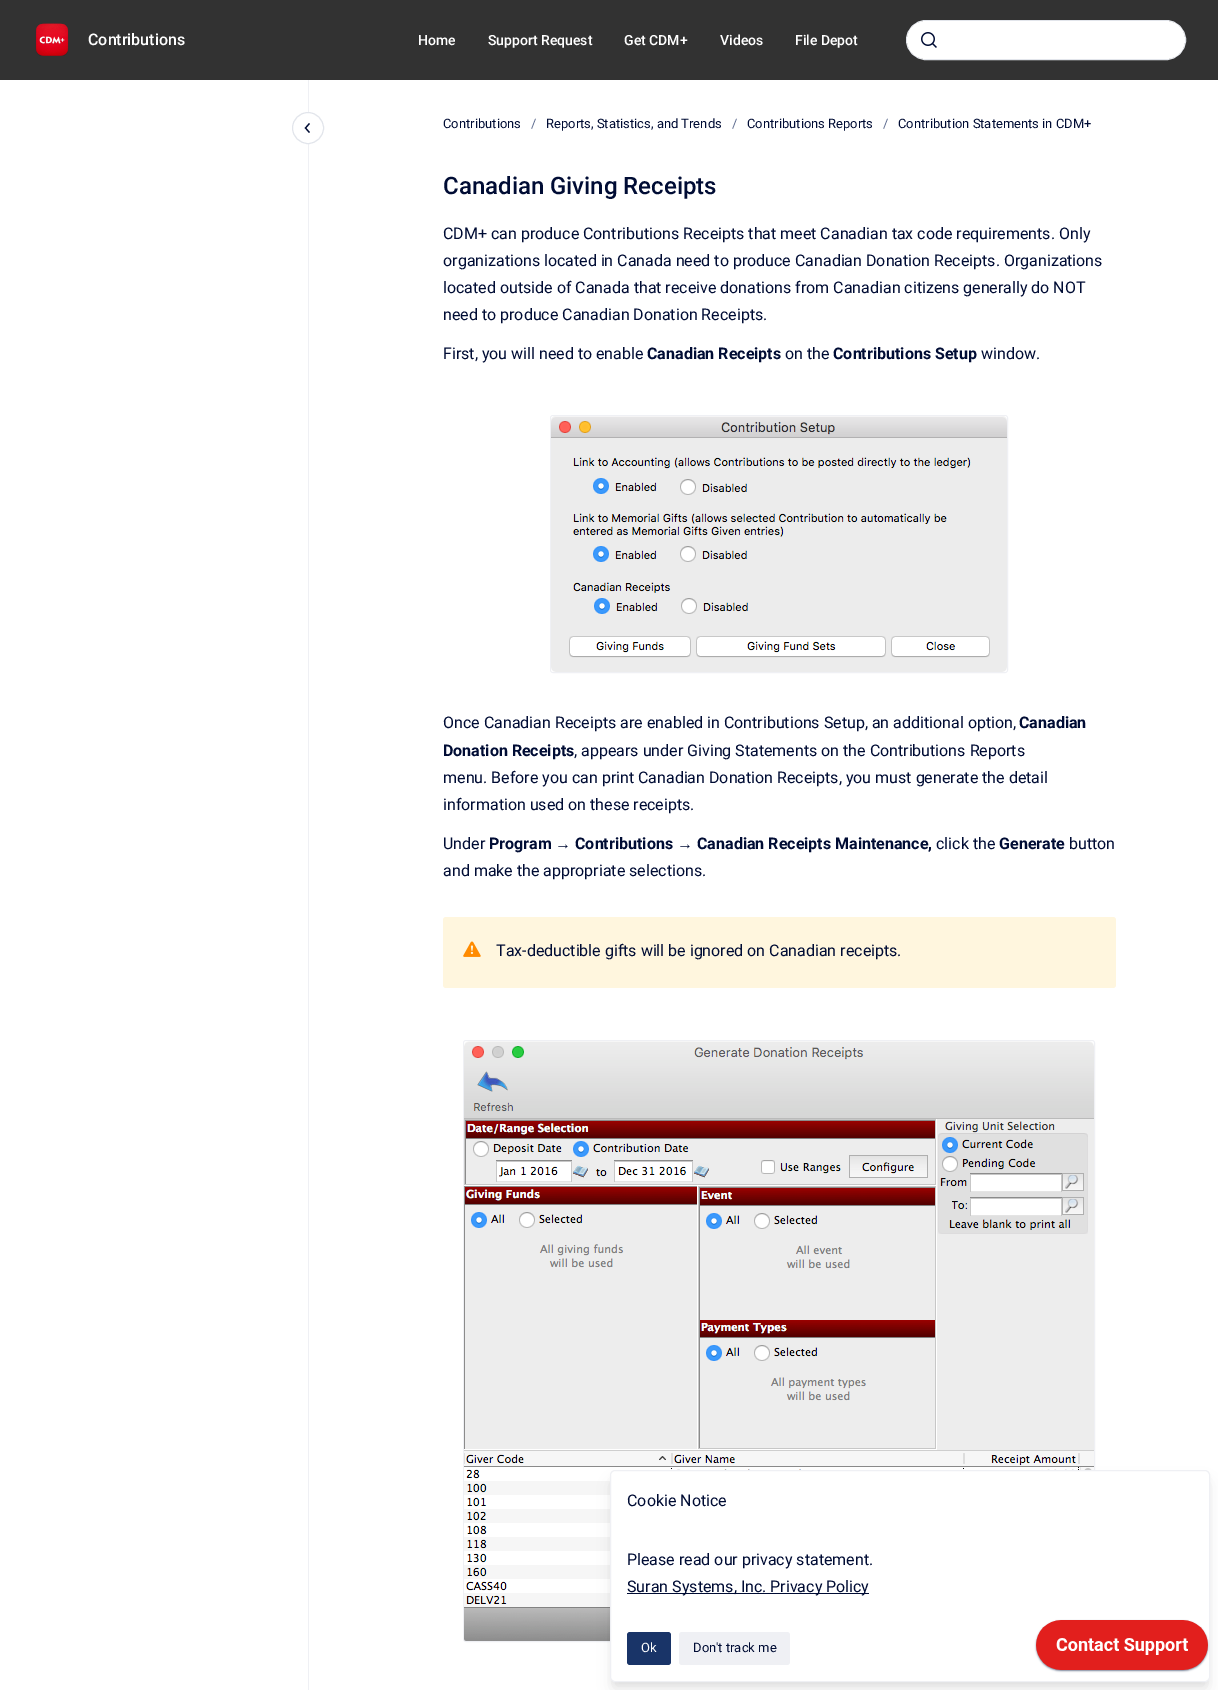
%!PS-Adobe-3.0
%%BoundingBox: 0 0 1218 1690
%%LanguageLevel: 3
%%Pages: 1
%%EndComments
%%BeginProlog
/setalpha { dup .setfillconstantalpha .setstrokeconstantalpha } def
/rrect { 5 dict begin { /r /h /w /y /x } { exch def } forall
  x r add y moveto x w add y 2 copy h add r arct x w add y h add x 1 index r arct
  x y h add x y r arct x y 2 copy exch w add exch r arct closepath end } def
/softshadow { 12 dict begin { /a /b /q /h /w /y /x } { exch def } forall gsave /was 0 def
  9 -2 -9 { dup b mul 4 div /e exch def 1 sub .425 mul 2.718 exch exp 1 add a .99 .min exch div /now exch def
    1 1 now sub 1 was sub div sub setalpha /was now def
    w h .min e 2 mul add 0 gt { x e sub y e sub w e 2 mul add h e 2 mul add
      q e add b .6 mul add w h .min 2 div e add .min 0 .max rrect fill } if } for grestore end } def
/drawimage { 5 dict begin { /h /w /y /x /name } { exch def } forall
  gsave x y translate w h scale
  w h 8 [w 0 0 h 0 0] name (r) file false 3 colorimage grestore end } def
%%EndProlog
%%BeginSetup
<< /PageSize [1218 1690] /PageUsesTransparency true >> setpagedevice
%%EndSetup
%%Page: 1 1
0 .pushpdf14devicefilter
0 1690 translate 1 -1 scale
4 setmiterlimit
1 setgray
0 0 1218 1690 rectfill
0.196 setgray
0 0 1218 80 rectfill
(images/1.raw) 35 23 34 33 drawimage
0.886 0.898 0.922 setrgbcolor
906.5 20.5 279 39 19.5 rrect stroke
1 setgray
907 21 278 38 19 rrect fill
(images/2.raw) 921 32 16 16 drawimage
0.937 0.941 0.957 setrgbcolor
308 80 1 1610 rectfill
1 setgray
newpath 308 144 moveto 299 144 292 137 292 128 curveto 292 119 299 112 308 112 curveto 317 112 324 119 324 128 curveto 324 137 317 144 308 144 curveto closepath fill
0.886 0.898 0.922 setrgbcolor
newpath 308 143.5 moveto 299.5 143.5 292.5 136.5 292.5 128 curveto 292.5 119.5 299.5 112.5 308 112.5 curveto 316.5 112.5 323.5 119.5 323.5 128 curveto 323.5 136.5 316.5 143.5 308 143.5 curveto closepath stroke
0 0.047 0.204 setrgbcolor
1.2 setlinewidth
2 setlinecap
newpath 309 132 moveto 305.5 128 lineto 309 124 lineto stroke
0.937 0.941 0.957 setrgbcolor
1 setlinewidth
0 setlinecap
550.5 415.5 457 257 2.5 rrect stroke
(images/3.raw) 551 416 456 256 drawimage
1 0.965 0.871 setrgbcolor
443 917 673 71 3 rrect fill
(images/4.raw) 463 941 18 16 drawimage
0.937 0.941 0.957 setrgbcolor
463.5 1040.5 631 601 2.5 rrect stroke
(images/5.raw) 464 1041 630 600 drawimage
0 setgray
612 1476 596 208 3 3 0.05 softshadow
613 1483 594 206 2 7.5 0.1 softshadow
1 setgray
610.5 1470.5 599 211 4.5 rrect gsave fill grestore
0.937 0.941 0.957 setrgbcolor
stroke
0 0.047 0.204 setrgbcolor
627 1593 242 1 rectfill
0.098 0.204 0.408 setrgbcolor
627 1632 44 33 3 rrect fill
0.937 0.941 0.957 setrgbcolor
679 1632 111 33 3 rrect fill
(images/6.raw) 1034 1619 176 54 drawimage
/Roboto-Medium [16 0 0 -16 0 0] selectfont
1 setgray
88 45 moveto (Contributions) show
/Roboto-Medium [14 0 0 -14 0 0] selectfont
418 45 moveto (Home) show
488 45 moveto (Support Request) show
624 45 moveto (Get CDM+) show
720 45 moveto (Videos) show
795 45 moveto (File Depot) show
/Roboto-Regular [13 0 0 -13 0 0] selectfont
0 0.047 0.204 setrgbcolor
443 128 moveto (Contributions) show
0.365 0.42 0.561 setrgbcolor
531 128 moveto (/) show
0 0.047 0.204 setrgbcolor
546 128 moveto (Reports, Statistics, and Trends) show
0.365 0.42 0.561 setrgbcolor
732 128 moveto (/) show
0 0.047 0.204 setrgbcolor
747 128 moveto (Contributions Reports) show
0.365 0.42 0.561 setrgbcolor
883 128 moveto (/) show
0 0.047 0.204 setrgbcolor
898 128 moveto (Contribution Statements in CDM+) show
/Roboto-Medium [24 0 0 -24 0 0] selectfont
443 194 moveto (Canadian Giving Receipts) show
/Roboto-Regular [16 0 0 -16 0 0] selectfont
443 239 moveto (CDM+ can produce Contributions Receipts that meet Canadian tax code requirements. Only) show
443 266 moveto (organizations located in Canada need to produce Canadian Donation Receipts. Organizations) show
443 293 moveto (located outside of Canada that receive donations from Canadian citizens generally do NOT) show
443 320 moveto (need to produce Canadian Donation Receipts.) show
443 359 moveto (First, you will need to enable) show
/Roboto-Bold [16 0 0 -16 0 0] selectfont
647 359 moveto (Canadian Receipts) show
/Roboto-Regular [16 0 0 -16 0 0] selectfont
785 359 moveto (on the) show
/Roboto-Bold [16 0 0 -16 0 0] selectfont
833 359 moveto (Contributions Setup) show
/Roboto-Regular [16 0 0 -16 0 0] selectfont
981 359 moveto (window.) show
443 728 moveto (Once Canadian Receipts are enabled in Contributions Setup, an additional option,) show
/Roboto-Bold [16 0 0 -16 0 0] selectfont
1019 728 moveto (Canadian) show
443 756 moveto (Donation Receipts) show
/Roboto-Regular [16 0 0 -16 0 0] selectfont
574 756 moveto (, appears under Giving Statements on the Contributions Reports) show
443 783 moveto (menu. Before you can print Canadian Donation Receipts, you must generate the detail) show
443 810 moveto (information used on these receipts.) show
443 849 moveto (Under) show
/Roboto-Bold [16 0 0 -16 0 0] selectfont
489 849 moveto (Program) show
/LiberationSans-Regular [16 0 0 -16 0 0] selectfont
555 849 moveto (→) show
/Roboto-Bold [16 0 0 -16 0 0] selectfont
575 849 moveto (Contributions) show
/LiberationSans-Regular [16 0 0 -16 0 0] selectfont
677 849 moveto (→) show
/Roboto-Bold [16 0 0 -16 0 0] selectfont
697 849 moveto (Canadian Receipts Maintenance,) show
/Roboto-Regular [16 0 0 -16 0 0] selectfont
936 849 moveto (click the) show
/Roboto-Bold [16 0 0 -16 0 0] selectfont
999 849 moveto (Generate) show
/Roboto-Regular [16 0 0 -16 0 0] selectfont
1069 849 moveto (button) show
443 876 moveto (and make the appropriate selections.) show
496 956 moveto (Tax-deductible gifts will be ignored on Canadian receipts.) show
627 1506 moveto (Cookie Notice) show
627 1565 moveto (Please read our privacy statement.) show
627 1592 moveto (Suran Systems, Inc. Privacy Policy) show
/Roboto-Regular [13 0 0 -13 0 0] selectfont
1 setgray
641 1652 moveto (Ok) show
0 0.047 0.204 setrgbcolor
693 1652 moveto (Don't track me) show
.poppdf14devicefilter showpage
%%EOF
